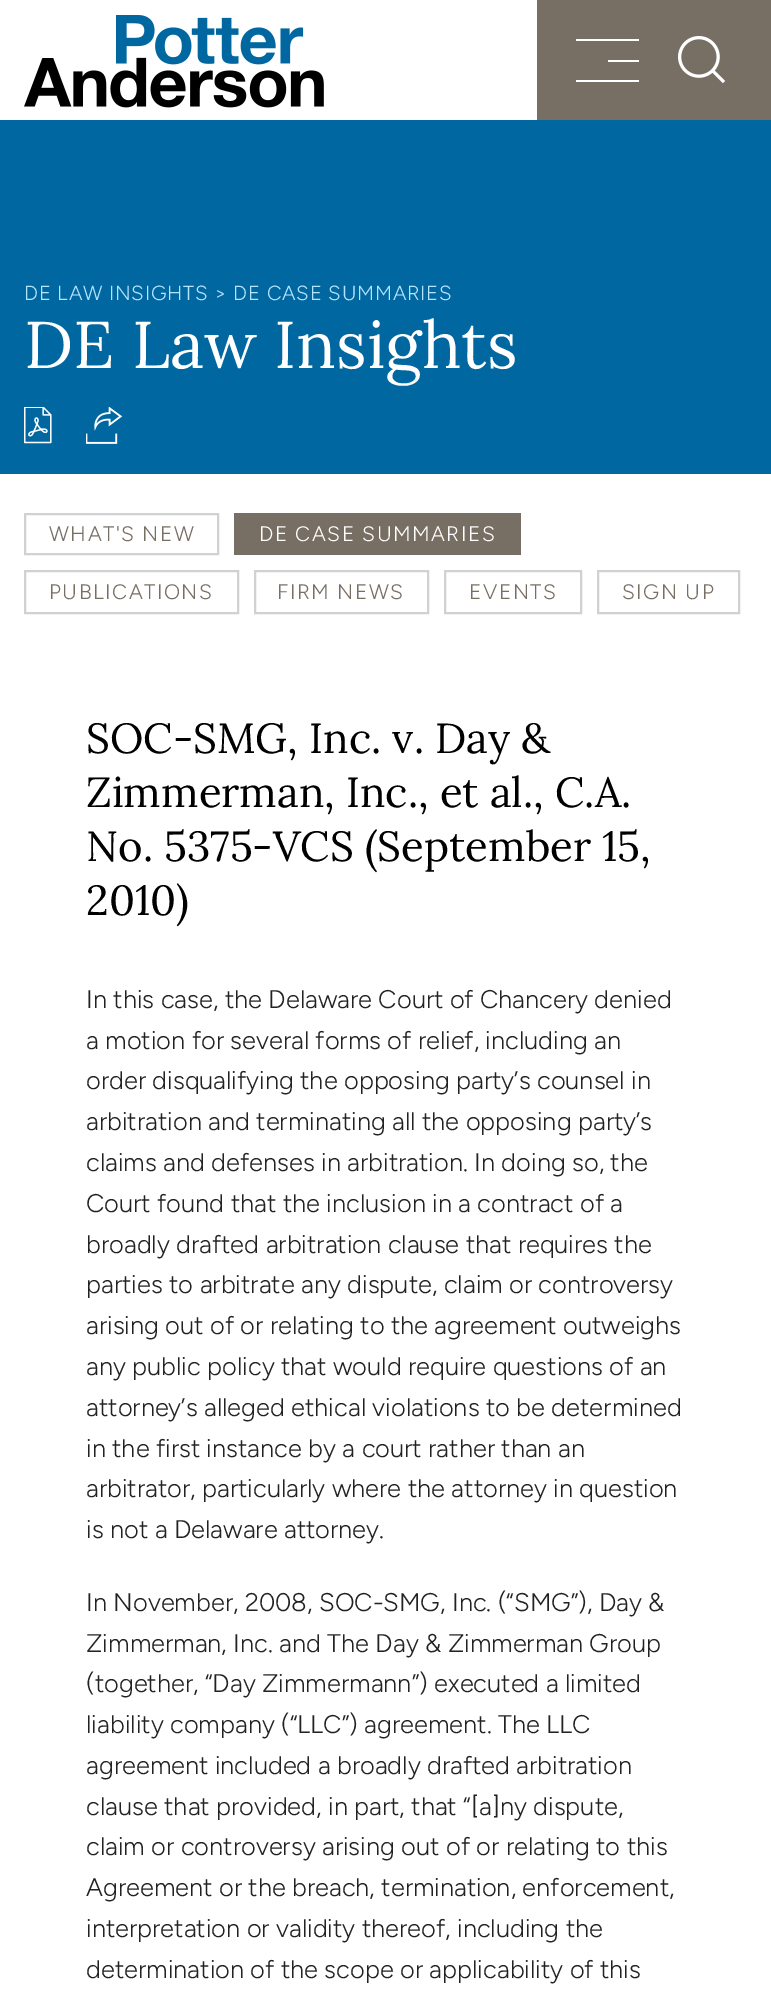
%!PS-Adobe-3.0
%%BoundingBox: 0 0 771 2005
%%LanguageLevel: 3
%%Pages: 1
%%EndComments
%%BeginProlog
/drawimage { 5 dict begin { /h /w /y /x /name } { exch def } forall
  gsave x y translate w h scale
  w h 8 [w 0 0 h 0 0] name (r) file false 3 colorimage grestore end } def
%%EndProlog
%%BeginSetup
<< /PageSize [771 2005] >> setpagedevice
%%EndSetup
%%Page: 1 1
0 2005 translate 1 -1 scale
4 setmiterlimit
1 setgray
0 0 771 2005 rectfill
(images/1.raw) 24 15 300 93 drawimage
0.467 0.431 0.392 setrgbcolor
537 0 234 120 rectfill
1 setgray
576 39 63 2 rectfill
608 60 31 2 rectfill
576 80 63 2 rectfill
(images/2.raw) 678 36 48 48 drawimage
0.004 0.404 0.627 setrgbcolor
0 120 771 354 rectfill
(images/3.raw) 24 407 28 37 drawimage
(images/4.raw) 86 407 37 37 drawimage
0.82 setgray
2 setlinewidth
25 514 193 40 rectstroke
0.467 0.431 0.392 setrgbcolor
234 513 287 42 rectfill
0.82 setgray
25 571 213 42 rectstroke
255 571 173 42 rectstroke
445 571 136 42 rectstroke
598 571 141 42 rectstroke
/Figtree-Light [20.4 0 0 -20.4 0 0] selectfont
0.71 0.894 1 setrgbcolor
24 300 moveto 0.75 0 (DE LAW INSIGHTS) ashow
214 300 moveto 0.75 0 (> DE CASE SUMMARIES) ashow
/Lora-Regular [66 0 0 -66 0 0] selectfont
1 setgray
24 368 moveto (DE Law Insights) show
/Figtree-Light [20.9 0 0 -20.9 0 0] selectfont
0.467 0.431 0.392 setrgbcolor
49 541 moveto 1.5 0 (WHAT'S NEW) ashow
1 setgray
259 541 moveto 1.5 0 (DE CASE SUMMARIES) ashow
0.467 0.431 0.392 setrgbcolor
49 599 moveto 1.5 0 (PUBLICATIONS) ashow
277 599 moveto 1.5 0 (FIRM NEWS) ashow
469 599 moveto 1.5 0 (EVENTS) ashow
622 599 moveto 1.5 0 (SIGN UP) ashow
/Lora-Regular [42 0 0 -42 0 0] selectfont
0 setgray
86 753 moveto (SOC-SMG, Inc. v. Day &) show
86 807 moveto (Zimmerman, Inc., et al., C.A.) show
86 861 moveto (No. 5375-VCS \(September 15,) show
86 915 moveto (2010\)) show
/Figtree-Light [25.5 0 0 -25.5 0 0] selectfont
0.133 setgray
86 1008 moveto (In this case, the Delaware Court of Chancery denied) show
86 1049 moveto (a motion for several forms of relief, including an) show
86 1089 moveto (order disqualifying the opposing party’s counsel in) show
86 1130 moveto (arbitration and terminating all the opposing party’s) show
86 1171 moveto (claims and defenses in arbitration. In doing so, the) show
86 1212 moveto (Court found that the inclusion in a contract of a) show
86 1253 moveto (broadly drafted arbitration clause that requires the) show
86 1293 moveto (parties to arbitrate any dispute, claim or controversy) show
86 1334 moveto (arising out of or relating to the agreement outweighs) show
86 1375 moveto (any public policy that would require questions of an) show
86 1416 moveto (attorney’s alleged ethical violations to be determined) show
86 1457 moveto (in the first instance by a court rather than an) show
86 1497 moveto (arbitrator, particularly where the attorney in question) show
86 1538 moveto (is not a Delaware attorney.) show
86 1611 moveto (In November, 2008, SOC-SMG, Inc. \(“SMG”\), Day &) show
86 1652 moveto (Zimmerman, Inc. and The Day & Zimmerman Group) show
86 1692 moveto (\(together, “Day Zimmermann”\) executed a limited) show
86 1733 moveto (liability company \(“LLC”\) agreement. The LLC) show
86 1774 moveto (agreement included a broadly drafted arbitration) show
86 1815 moveto (clause that provided, in part, that “[a]ny dispute,) show
86 1855 moveto (claim or controversy arising out of or relating to this) show
86 1896 moveto (Agreement or the breach, termination, enforcement,) show
86 1937 moveto (interpretation or validity thereof, including the) show
86 1978 moveto (determination of the scope or applicability of this) show
showpage
%%EOF
